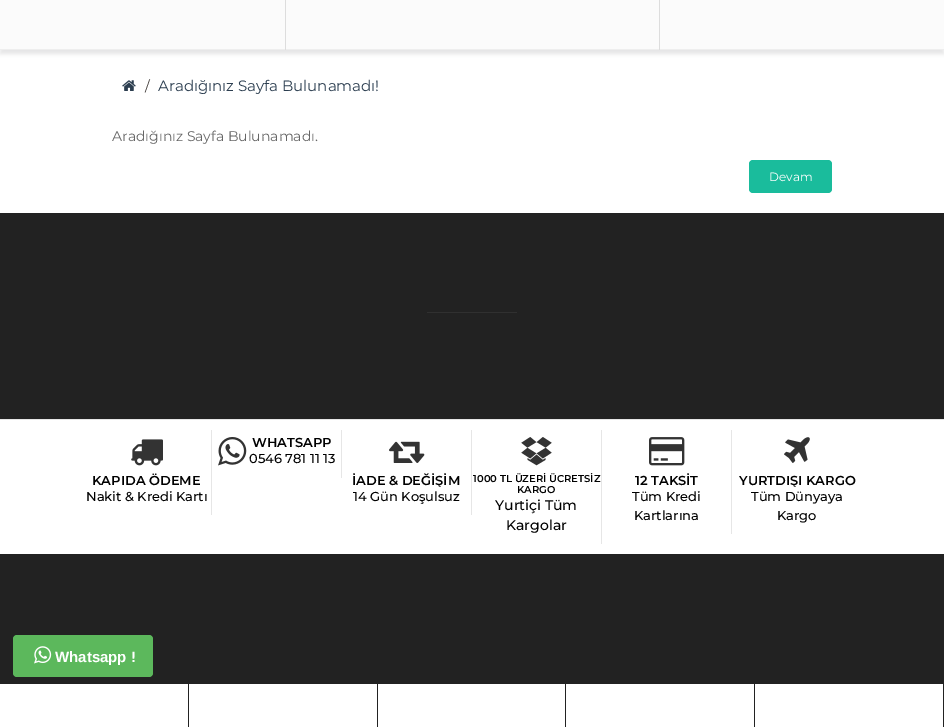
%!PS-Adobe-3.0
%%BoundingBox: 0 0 944 727
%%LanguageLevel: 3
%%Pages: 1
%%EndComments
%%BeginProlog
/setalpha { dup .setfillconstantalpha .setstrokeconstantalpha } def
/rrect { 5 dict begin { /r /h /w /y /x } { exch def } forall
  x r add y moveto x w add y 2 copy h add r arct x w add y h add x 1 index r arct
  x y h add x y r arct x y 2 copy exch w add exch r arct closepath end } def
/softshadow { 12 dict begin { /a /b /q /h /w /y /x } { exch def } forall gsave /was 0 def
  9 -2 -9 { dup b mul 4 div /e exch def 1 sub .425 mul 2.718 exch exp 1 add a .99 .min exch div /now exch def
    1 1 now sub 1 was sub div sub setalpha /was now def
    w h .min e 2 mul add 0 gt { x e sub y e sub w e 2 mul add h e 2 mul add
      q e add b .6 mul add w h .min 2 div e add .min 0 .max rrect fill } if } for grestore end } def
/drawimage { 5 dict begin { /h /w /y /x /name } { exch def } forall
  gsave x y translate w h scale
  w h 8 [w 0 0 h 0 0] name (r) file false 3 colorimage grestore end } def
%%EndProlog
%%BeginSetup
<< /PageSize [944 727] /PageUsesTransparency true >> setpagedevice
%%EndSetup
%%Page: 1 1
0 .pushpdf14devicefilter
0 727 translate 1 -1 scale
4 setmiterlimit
1 setgray
0 0 944 727 rectfill
0.894 0.898 0.902 setrgbcolor
0 4 944 50 0 2 1 softshadow
0.984 setgray
0 0 944 49 rectfill
0.933 setgray
0 49 944 1 rectfill
0.867 setgray
659 0 1 50 rectfill
285 0 1 50 rectfill
(images/1.raw) 122 80 14 11 drawimage
0.102 0.737 0.612 setrgbcolor
749 160 83 33 4 rrect fill
0.133 setgray
0 213 944 471 rectfill
0.361 0.722 0.361 setrgbcolor
13 635 140 42 4 rrect fill
(images/2.raw) 34 646 18 18 drawimage
0.188 setgray
427 312 90 1 rectfill
1 setgray
0 420 944 134 rectfill
0.902 setgray
0 419 944 1 rectfill
341 430 1 48 rectfill
(images/3.raw) 218 437 29 29 drawimage
211 430 1 85 rectfill
(images/4.raw) 131 439 32 27 drawimage
471 430 1 85 rectfill
(images/5.raw) 389 441 36 22 drawimage
601 430 1 114 rectfill
(images/6.raw) 521 437 31 29 drawimage
731 430 1 104 rectfill
(images/7.raw) 649 437 36 29 drawimage
(images/8.raw) 784 437 26 26 drawimage
0.133 setgray
188 684 1 43 rectfill
377 684 1 43 rectfill
565 684 1 43 rectfill
754 684 1 43 rectfill
943 684 1 43 rectfill
/Montserrat-Regular [14 0 0 -14 0 0] selectfont
0.255 0.235 0.224 setrgbcolor
145 91 moveto (/) show
/Montserrat-Regular [15 0 0 -15 0 0] selectfont
0.173 0.243 0.314 setrgbcolor
158 91 moveto (Aradığınız Sayfa Bulunamadı!) show
/Montserrat-Regular [14 0 0 -14 0 0] selectfont
0.4 setgray
112 141 moveto (Aradığınız Sayfa Bulunamadı.) show
/Montserrat-Regular [12 0 0 -12 0 0] selectfont
1 setgray
769 181 moveto (Devam) show
/LiberationSans-Bold [15 0 0 -15 0 0] selectfont
55 662 moveto (Whatsapp !) show
/Montserrat-SemiBold [13 0 0 -13 0 0] selectfont
0 setgray
252 447 moveto (WHATSAPP) show
/Montserrat-Medium [13 0 0 -13 0 0] selectfont
249 463 moveto (0546 781 11 13) show
/Montserrat-SemiBold [13 0 0 -13 0 0] selectfont
92 485 moveto (KAPIDA ÖDEME) show
/Montserrat-Medium [13 0 0 -13 0 0] selectfont
86 501 moveto (Nakit & Kredi Kartı) show
gsave
352 473 108 14 rectclip
/Montserrat-SemiBold [13 0 0 -13 0 0] selectfont
352 485 moveto (İADE & DEĞİŞİM) show
grestore
353 501 moveto (14 Gün Koşulsuz) show
/Montserrat-SemiBold [10 0 0 -10 0 0] selectfont
473 482 moveto (1000 TL ÜZERİ ÜCRETSİZ) show
517 493 moveto (KARGO) show
/Montserrat-Medium [14 0 0 -14 0 0] selectfont
495 510 moveto (Yurtiçi Tüm) show
506 530 moveto (Kargolar) show
/Montserrat-SemiBold [13 0 0 -13 0 0] selectfont
635 485 moveto (12 TAKSİT) show
/Montserrat-Medium [13 0 0 -13 0 0] selectfont
632 501 moveto (Tüm Kredi) show
634 520 moveto (Kartlarına) show
gsave
732 473 130 14 rectclip
/Montserrat-SemiBold [13 0 0 -13 0 0] selectfont
739 485 moveto (YURTDIŞI KARGO) show
grestore
751 501 moveto (Tüm Dünyaya) show
777 520 moveto (Kargo) show
.poppdf14devicefilter showpage
%%EOF
